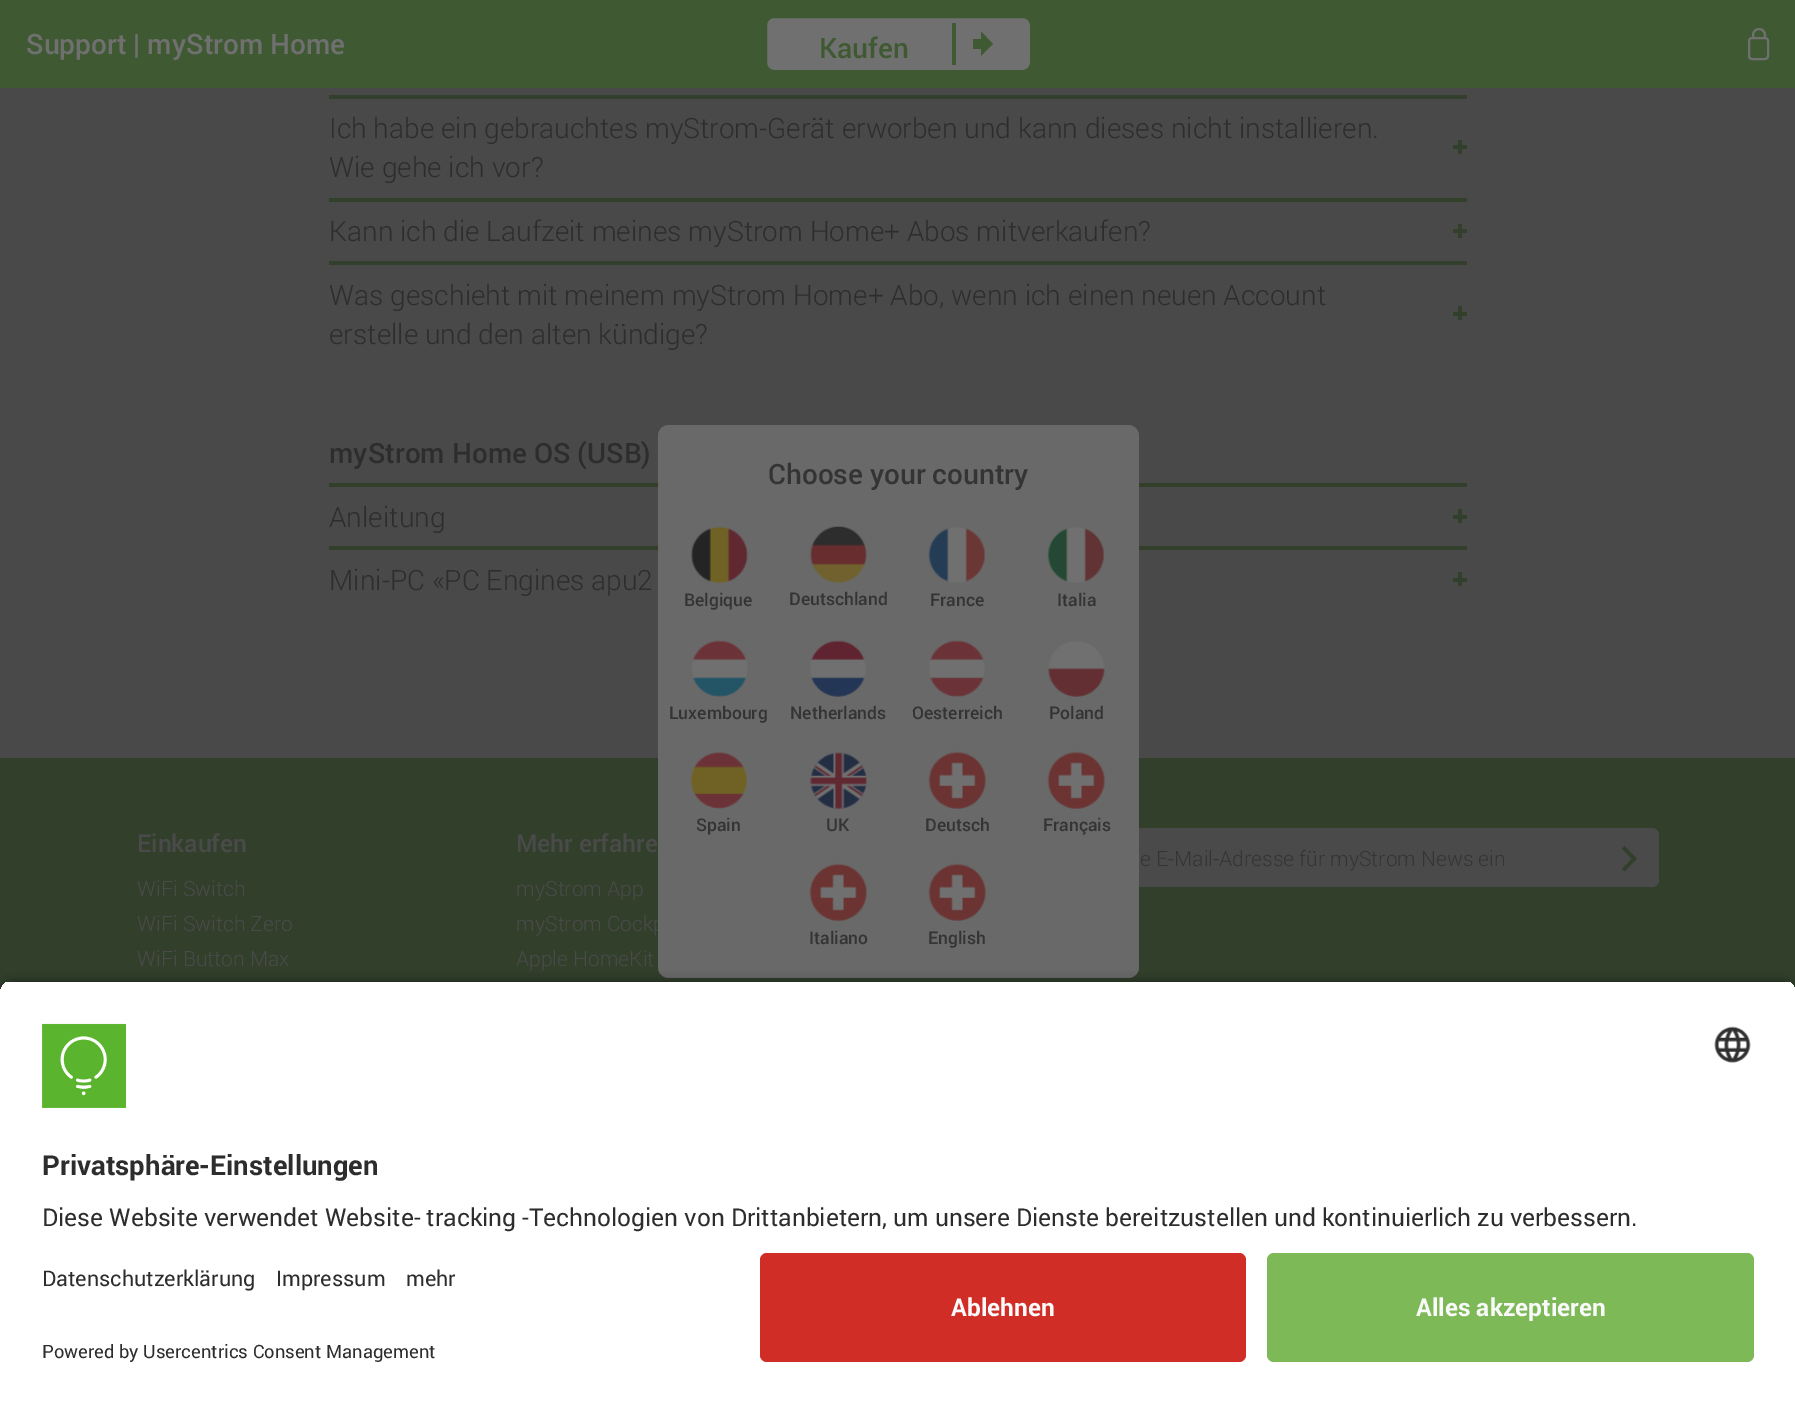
%!PS-Adobe-3.0
%%BoundingBox: 0 0 1795 1403
%%LanguageLevel: 3
%%Pages: 1
%%EndComments
%%BeginProlog
/setalpha { dup .setfillconstantalpha .setstrokeconstantalpha } def
/rrect { 5 dict begin { /r /h /w /y /x } { exch def } forall
  x r add y moveto x w add y 2 copy h add r arct x w add y h add x 1 index r arct
  x y h add x y r arct x y 2 copy exch w add exch r arct closepath end } def
/softshadow { 12 dict begin { /a /b /q /h /w /y /x } { exch def } forall gsave /was 0 def
  9 -2 -9 { dup b mul 4 div /e exch def 1 sub .425 mul 2.718 exch exp 1 add a .99 .min exch div /now exch def
    1 1 now sub 1 was sub div sub setalpha /was now def
    w h .min e 2 mul add 0 gt { x e sub y e sub w e 2 mul add h e 2 mul add
      q e add b .6 mul add w h .min 2 div e add .min 0 .max rrect fill } if } for grestore end } def
/drawimage { 5 dict begin { /h /w /y /x /name } { exch def } forall
  gsave x y translate w h scale
  w h 8 [w 0 0 h 0 0] name (r) file false 3 colorimage grestore end } def
%%EndProlog
%%BeginSetup
<< /PageSize [1795 1403] /PageUsesTransparency true >> setpagedevice
%%EndSetup
%%Page: 1 1
0 .pushpdf14devicefilter
0 1403 translate 1 -1 scale
4 setmiterlimit
0.286 setgray
0 0 1795 1403 rectfill
0.247 0.353 0.196 setrgbcolor
0 0 1795 88 rectfill
0.439 setgray
765 16 267 56 9 rrect gsave fill grestore
0.247 0.353 0.196 setrgbcolor
4 setlinewidth
stroke
952 23 4 42 rectfill
973 39 8 10 rectfill
newpath 981 56 moveto 981 31.5 lineto 993 44 lineto closepath fill
0.439 setgray
2 setlinewidth
1749 38 19 21 3 rrect stroke
gsave
1748 28 21 9 rectclip
newpath 1759 35 6 0 360 arc closepath stroke
grestore
0.192 0.247 0.169 setrgbcolor
329 95 1138 4 rectfill
1453 145 14 4 rectfill
1458 140 4 14 rectfill
329 198 1138 4 rectfill
1453 229 14 4 rectfill
1458 224 4 14 rectfill
329 261 1138 4 rectfill
1453 312 14 4 rectfill
1458 306 4 14 rectfill
329 483 1138 4 rectfill
1453 515 14 4 rectfill
1458 509 4 14 rectfill
329 546 1138 4 rectfill
1453 578 14 4 rectfill
1458 572 4 14 rectfill
0 758 1795 236 rectfill
0.29 setgray
994 828 665 59 7 rrect fill
0.192 0.247 0.169 setrgbcolor
newpath 1624.5 846 moveto 1636.5 858.5 lineto 1634 861 lineto 1622 848.5 lineto closepath fill
newpath 1622 869 moveto 1634 856.5 lineto 1636.5 859 lineto 1624.5 871.5 lineto closepath fill
/Roboto-Medium [28 0 0 -28 0 0] selectfont
0.439 setgray
26 54 moveto (Support | myStrom Home) show
0.247 0.353 0.196 setrgbcolor
819 58 moveto (Kaufen) show
/Roboto-Light [28 0 0 -28 0 0] selectfont
0.18 0.176 0.18 setrgbcolor
329 138 moveto (Ich habe ein gebrauchtes myStrom-Gerät erworben und kann dieses nicht installieren.) show
329 177 moveto (Wie gehe ich vor?) show
329 241 moveto (Kann ich die Laufzeit meines myStrom Home+ Abos mitverkaufen?) show
329 305 moveto (Was geschieht mit meinem myStrom Home+ Abo, wenn ich einen neuen Account) show
329 344 moveto (erstelle und den alten kündige?) show
/Roboto-Medium [28 0 0 -28 0 0] selectfont
329 463 moveto (myStrom Home OS \(USB\)) show
/Roboto-Light [28 0 0 -28 0 0] selectfont
329 527 moveto (Anleitung) show
329 590 moveto (Mini-PC «PC Engines apu2) show
/Roboto-Medium [24.5 0 0 -24.5 0 0] selectfont
0.29 setgray
137 852 moveto (Einkaufen) show
/Roboto-Light [21 0 0 -21 0 0] selectfont
137 896 moveto (WiFi Switch) show
137 931 moveto (WiFi Switch Zero) show
137 966 moveto (WiFi Button Max) show
/Roboto-Medium [24.5 0 0 -24.5 0 0] selectfont
516 852 moveto (Mehr erfahre) show
/Roboto-Light [21 0 0 -21 0 0] selectfont
516 896 moveto (myStrom App) show
516 931 moveto (myStrom Cockp) show
0.412 setgray
658 425 481 553 11 rrect fill
/Roboto-Medium [17.5 0 0 -17.5 0 0] selectfont
0.204 0.204 0.208 setrgbcolor
928 944 moveto (English) show
(images/11.raw) 928 863 58 58 drawimage
809 944 moveto (Italiano) show
(images/11.raw) 809 863 58 58 drawimage
1043 831 moveto (Français) show
(images/12.raw) 1047 751 58 58 drawimage
925 831 moveto (Deutsch) show
(images/11.raw) 928 751 58 58 drawimage
826 831 moveto (UK) show
(images/10.raw) 809 751 58 58 drawimage
696 831 moveto (Spain) show
(images/9.raw) 690 751 58 58 drawimage
1049 719 moveto (Poland) show
(images/8.raw) 1047 641 58 56 drawimage
912 719 moveto (Oesterreich) show
(images/7.raw) 929 640 56 57 drawimage
790 719 moveto (Netherlands) show
(images/6.raw) 810 640 56 57 drawimage
669 719 moveto (Luxembourg) show
(images/5.raw) 691 640 57 57 drawimage
1057 606 moveto (Italia) show
(images/4.raw) 1047 527 58 56 drawimage
930 606 moveto (France) show
(images/3.raw) 928 527 58 56 drawimage
789 605 moveto (Deutschland) show
(images/2.raw) 809 526 58 57 drawimage
684 606 moveto (Belgique) show
(images/1.raw) 690 526 58 57 drawimage
/Roboto-Medium [28 0 0 -28 0 0] selectfont
768 484 moveto (Choose your country) show
/Roboto-Light [21 0 0 -21 0 0] selectfont
0.29 setgray
516 966 moveto (Apple HomeKit) show
0.204 0.204 0.208 setrgbcolor
1140 866 moveto (e E-Mail-Adresse für myStrom News ein) show
0 setgray
0 985 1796 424 14 6 0.8 softshadow
gsave
newpath 14 980 moveto 1782 980 lineto 1789.5 980 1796 986.5 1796 994 curveto 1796 1239 lineto 0 1239 lineto 0 994 lineto 0 986.5 6.5 980 14 980 curveto closepath clip newpath
1 setgray
0 982 1795 257 rectfill
grestore
(images/13.raw) 42 1023 84 85 drawimage
(images/14.raw) 1714 1026 37 37 drawimage
/Roboto-Bold [27.5 0 0 -27.5 0 0] selectfont
0.18 0.176 0.18 setrgbcolor
42 1175 moveto (Privatsphäre-Einstellungen) show
/Roboto-Regular [24.5 0 0 -24.5 0 0] selectfont
42 1226 moveto (Diese Website verwendet Website- tracking -Technologien von Drittanbietern, um unsere Dienste bereitzustellen und kontinuierlich zu verbessern.) show
1 setgray
0 1239 1795 164 rectfill
/Roboto-Regular [21.5 0 0 -21.5 0 0] selectfont
0.18 0.176 0.18 setrgbcolor
42 1286 moveto (Datenschutzerklärung) show
276 1286 moveto (Impressum) show
406 1286 moveto (mehr) show
/Roboto-Regular [18.4 0 0 -18.4 0 0] selectfont
42 1358 moveto (Powered by Usercentrics Consent Management) show
0.812 0.176 0.149 setrgbcolor
760 1253 486 109 7 rrect fill
/Roboto-Bold [24.5 0 0 -24.5 0 0] selectfont
0.98 setgray
951 1316 moveto (Ablehnen) show
0.49 0.729 0.341 setrgbcolor
1267 1253 487 109 7 rrect fill
0.98 setgray
1416 1316 moveto (Alles akzeptieren) show
.poppdf14devicefilter showpage
%%EOF
